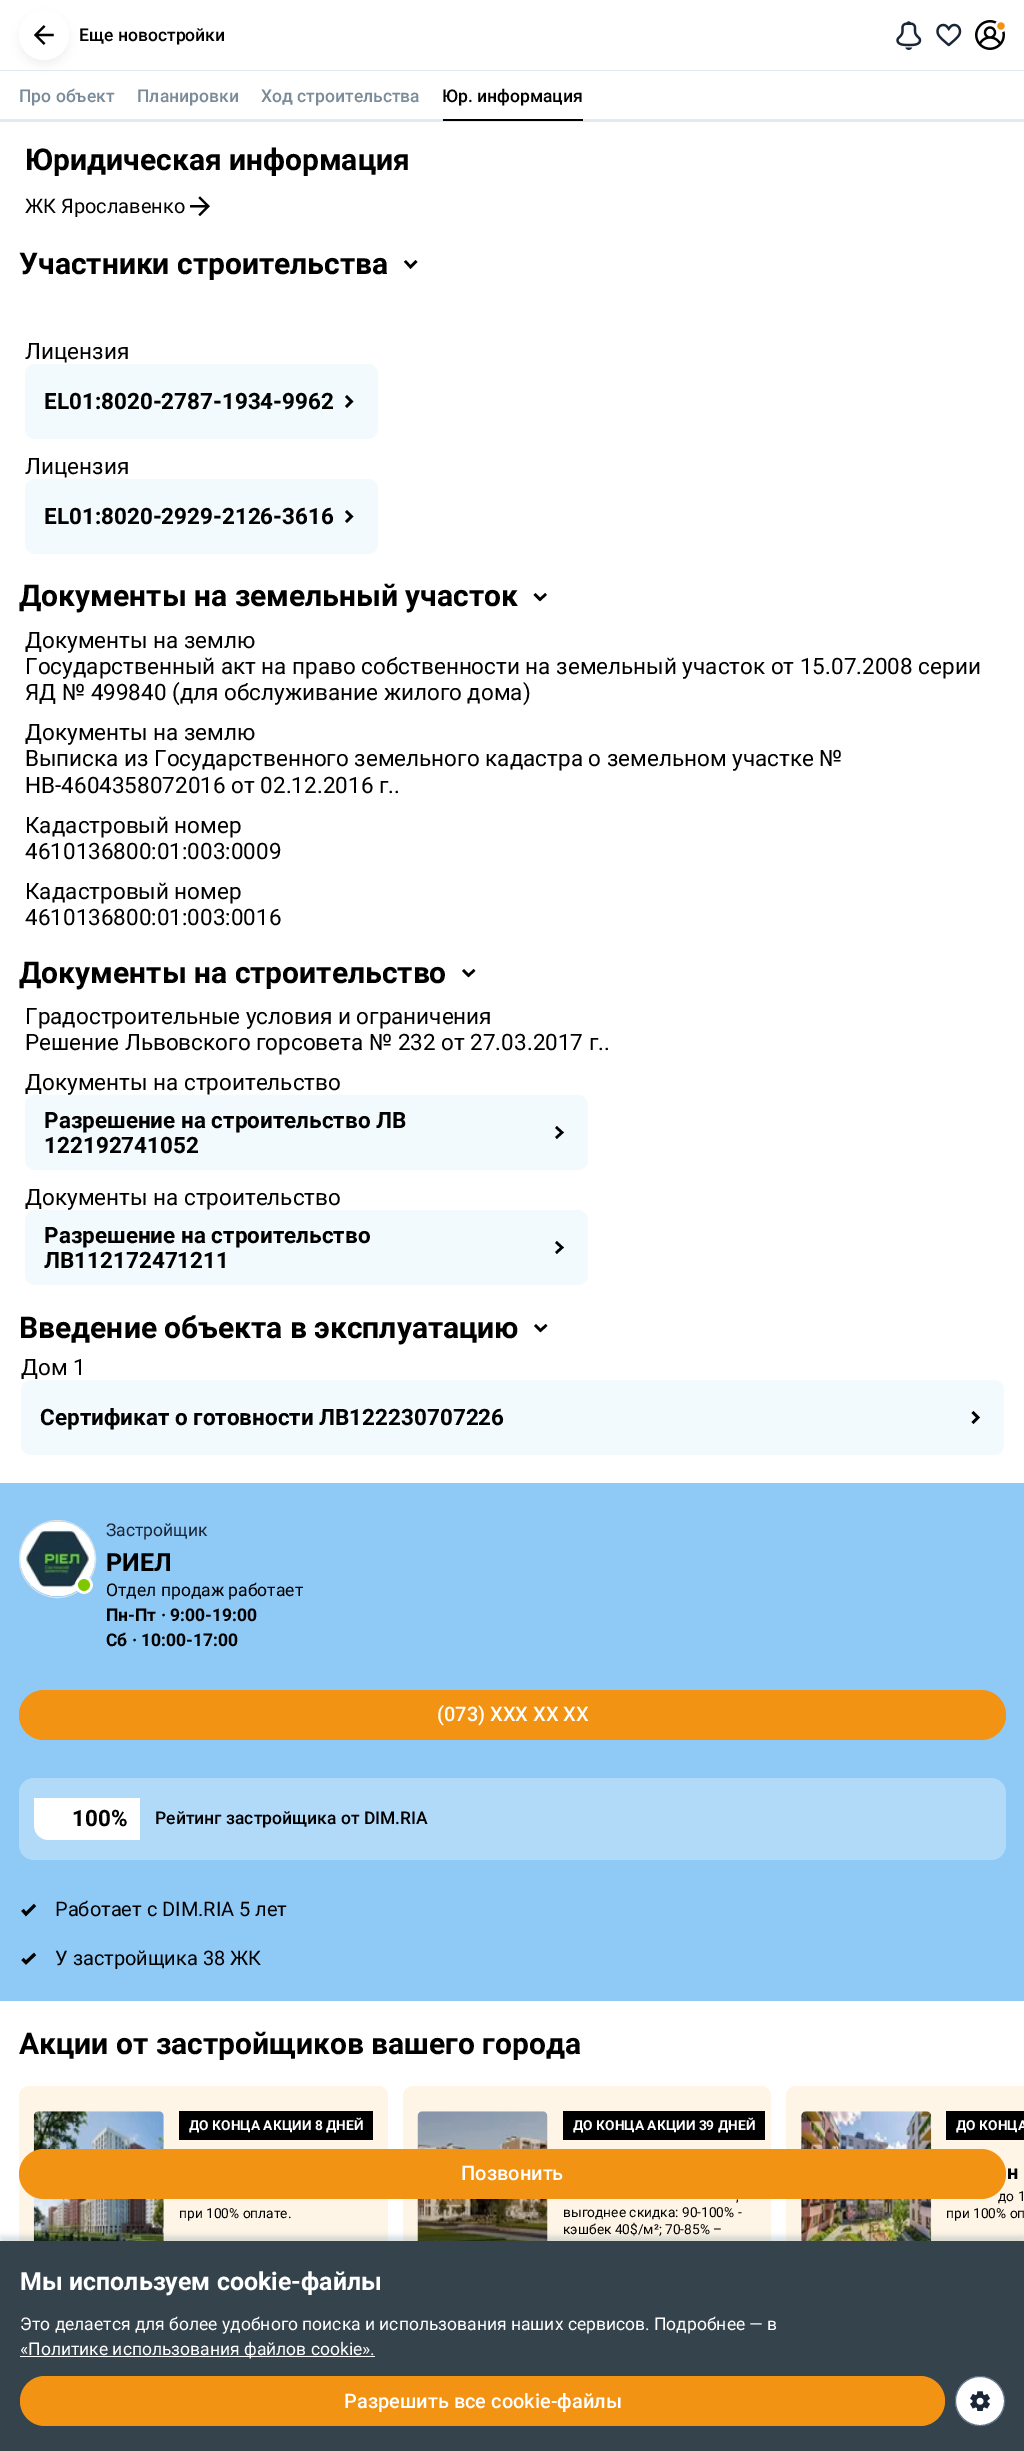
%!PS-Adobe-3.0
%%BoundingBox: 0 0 1024 2451
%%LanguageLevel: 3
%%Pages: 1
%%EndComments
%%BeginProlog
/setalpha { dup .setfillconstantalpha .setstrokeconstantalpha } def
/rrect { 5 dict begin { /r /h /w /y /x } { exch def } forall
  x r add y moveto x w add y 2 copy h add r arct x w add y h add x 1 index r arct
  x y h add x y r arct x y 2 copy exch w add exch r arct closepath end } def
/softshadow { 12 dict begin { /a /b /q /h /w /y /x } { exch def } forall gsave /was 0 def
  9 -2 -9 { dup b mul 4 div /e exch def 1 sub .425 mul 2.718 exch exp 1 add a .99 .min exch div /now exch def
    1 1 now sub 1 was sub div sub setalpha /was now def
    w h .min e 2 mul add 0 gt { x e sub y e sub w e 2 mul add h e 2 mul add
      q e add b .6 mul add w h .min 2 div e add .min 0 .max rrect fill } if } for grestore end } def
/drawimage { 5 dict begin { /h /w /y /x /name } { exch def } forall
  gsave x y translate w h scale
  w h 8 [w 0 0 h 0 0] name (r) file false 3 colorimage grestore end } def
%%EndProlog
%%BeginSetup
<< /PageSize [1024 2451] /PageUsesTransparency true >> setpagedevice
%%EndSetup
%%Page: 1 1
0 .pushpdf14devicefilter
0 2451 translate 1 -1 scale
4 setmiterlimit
1 setgray
0 0 1024 2451 rectfill
0.882 0.918 0.945 setrgbcolor
0 70 1024 1 rectfill
0 setgray
19 15 50 50 25 5 0.05 softshadow
1 setgray
newpath 44 35 25 0 360 arc closepath fill
(images/1.raw) 33 25 21 20 drawimage
(images/2.raw) 896 21 26 29 drawimage
(images/3.raw) 936 23 26 24 drawimage
(images/4.raw) 975 20 30 30 drawimage
0.882 0.918 0.945 setrgbcolor
0 119 1024 3 rectfill
0 setgray
443 119 140 2 rectfill
(images/5.raw) 190 196 20 21 drawimage
2.5 setlinewidth
newpath 405 261 moveto 410.5 267 lineto 416.5 261 lineto stroke
0.953 0.98 0.992 setrgbcolor
25 364 353 75 10 rrect fill
0 setgray
newpath 346 407 moveto 351.5 401.5 lineto 346 396 lineto stroke
0.953 0.98 0.992 setrgbcolor
25 479 353 75 10 rrect fill
0 setgray
newpath 346 522 moveto 351.5 516.5 lineto 346 511 lineto stroke
newpath 534.5 594 moveto 540 599.5 lineto 546 594 lineto stroke
newpath 463 970 moveto 468.5 975.5 lineto 474.5 970 lineto stroke
0.953 0.98 0.992 setrgbcolor
25 1095 563 75 10 rrect fill
0 setgray
newpath 556 1138 moveto 562 1132.5 lineto 556 1127 lineto stroke
0.953 0.98 0.992 setrgbcolor
25 1210 563 75 10 rrect fill
0 setgray
newpath 556 1253 moveto 562 1247.5 lineto 556 1242 lineto stroke
newpath 535 1325 moveto 540.5 1330.5 lineto 546.5 1325 lineto stroke
0.953 0.98 0.992 setrgbcolor
21 1380 983 75 10 rrect fill
0 setgray
newpath 972.5 1423 moveto 978 1417.5 lineto 972.5 1412 lineto stroke
0.561 0.788 0.965 setrgbcolor
0 1483 1024 518 rectfill
0.878 0.89 0.894 setrgbcolor
1 setlinewidth
19.5 1520.5 76 77 38 rrect stroke
(images/6.raw) 20 1521 75 76 drawimage
0.498 0.78 0 setrgbcolor
newpath 84 1585 7.5 0 360 arc closepath gsave fill grestore
1 setgray
2.5 setlinewidth
stroke
0.953 0.576 0.075 setrgbcolor
19 1690 987 50 25 rrect fill
0.694 0.851 0.973 setrgbcolor
19 1778 987 82 15 rrect fill
1 setgray
newpath 34 1798 moveto 140 1798 lineto 140 1840 lineto 49 1840 lineto 40.5 1840 34 1833.5 34 1825 curveto closepath fill
0 setgray
3.1 setlinewidth
newpath 22.5 1910 moveto 26 1914 lineto 35 1905 lineto 22.5 1959 moveto 26 1962.5 lineto 35 1954 lineto stroke
0.996 0.961 0.906 setrgbcolor
19 2086 369 193 10 rrect fill
(images/7.raw) 33 2111 131 130 drawimage
0 setgray
179 2111 194 29 rectfill
0.996 0.961 0.906 setrgbcolor
403 2086 368 193 10 rrect fill
(images/8.raw) 417 2111 131 130 drawimage
0 setgray
563 2111 202 29 rectfill
0.996 0.961 0.906 setrgbcolor
newpath 796 2086 moveto 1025 2086 lineto 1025 2279 lineto 796 2279 lineto 790.5 2279 786 2274.5 786 2269 curveto 786 2096 lineto 786 2090.5 790.5 2086 796 2086 curveto closepath fill
(images/9.raw) 801 2111 131 130 drawimage
0 setgray
946 2111 78 29 rectfill
0 0.231 0.337 setrgbcolor
0 2236 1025 210 0 2.5 0.15 softshadow
0.208 0.263 0.302 setrgbcolor
0 2241 1024 210 rectfill
1 setgray
20 2356 355 1 rectfill
0.953 0.576 0.075 setrgbcolor
20 2376 925 50 25 rrect fill
1 setgray
newpath 980 2401 24.5 0 360 arc closepath gsave fill grestore
0.384 0.443 0.541 setrgbcolor
1 setlinewidth
stroke
(images/10.raw) 970 2391 20 20 drawimage
/Roboto-Medium [17.5 0 0 -17.5 0 0] selectfont
0 setgray
79 41 moveto (Еще новостройки) show
0.478 0.549 0.6 setrgbcolor
19 102 moveto (Про объект) show
137 102 moveto (Планировки) show
261 102 moveto (Ход строительства) show
0 setgray
442 102 moveto (Юр. информация) show
/Roboto-Bold [30 0 0 -30 0 0] selectfont
25 170 moveto (Юридическая информация) show
/Roboto-Regular [20 0 0 -20 0 0] selectfont
25 213 moveto (ЖК Ярославенко) show
/Roboto-Bold [30 0 0 -30 0 0] selectfont
19 274 moveto (Участники строительства) show
/Roboto-Regular [22.5 0 0 -22.5 0 0] selectfont
25 359 moveto (Лицензия) show
/Roboto-Bold [22.5 0 0 -22.5 0 0] selectfont
44 409 moveto (EL01:8020-2787-1934-9962) show
/Roboto-Regular [22.5 0 0 -22.5 0 0] selectfont
25 474 moveto (Лицензия) show
/Roboto-Bold [22.5 0 0 -22.5 0 0] selectfont
44 524 moveto (EL01:8020-2929-2126-3616) show
/Roboto-Bold [30 0 0 -30 0 0] selectfont
19 606 moveto (Документы на земельный участок) show
/Roboto-Regular [22.5 0 0 -22.5 0 0] selectfont
25 648 moveto (Документы на землю) show
25 674 moveto (Государственный акт на право собственности на земельный участок от 15.07.2008 серии) show
25 700 moveto (ЯД № 499840 \(для обслуживание жилого дома\)) show
25 740 moveto (Документы на землю) show
25 766 moveto (Выписка из Государственного земельного кадастра о земельном участке №) show
25 793 moveto (НВ-4604358072016 от 02.12.2016 г..) show
25 833 moveto (Кадастровый номер) show
25 859 moveto (4610136800:01:003:0009) show
25 899 moveto (Кадастровый номер) show
25 925 moveto (4610136800:01:003:0016) show
/Roboto-Bold [30 0 0 -30 0 0] selectfont
19 983 moveto (Документы на строительство) show
/Roboto-Regular [22.5 0 0 -22.5 0 0] selectfont
25 1024 moveto (Градостроительные условия и ограничения) show
25 1050 moveto (Решение Львовского горсовета № 232 от 27.03.2017 г..) show
25 1090 moveto (Документы на строительство) show
/Roboto-Bold [22.5 0 0 -22.5 0 0] selectfont
44 1128 moveto (Разрешение на строительство ЛВ) show
44 1153 moveto (122192741052) show
/Roboto-Regular [22.5 0 0 -22.5 0 0] selectfont
25 1205 moveto (Документы на строительство) show
/Roboto-Bold [22.5 0 0 -22.5 0 0] selectfont
44 1243 moveto (Разрешение на строительство) show
44 1268 moveto (ЛВ112172471211) show
/Roboto-Bold [30 0 0 -30 0 0] selectfont
19 1338 moveto (Введение объекта в эксплуатацию) show
/Roboto-Regular [22.5 0 0 -22.5 0 0] selectfont
21 1375 moveto (Дом 1) show
/Roboto-Bold [22.5 0 0 -22.5 0 0] selectfont
40 1425 moveto (Сертификат о готовности ЛВ122230707226) show
/Roboto-Regular [17.5 0 0 -17.5 0 0] selectfont
0.102 0.149 0.22 setrgbcolor
106 1536 moveto (Застройщик) show
/Roboto-Bold [25 0 0 -25 0 0] selectfont
0 setgray
106 1571 moveto (РИЕЛ) show
/Roboto-Regular [17.5 0 0 -17.5 0 0] selectfont
106 1596 moveto (Отдел продаж работает) show
/Roboto-Bold [17.5 0 0 -17.5 0 0] selectfont
106 1621 moveto (Пн-Пт · 9:00-19:00) show
106 1646 moveto (Сб · 10:00-17:00) show
/Roboto-Medium [20 0 0 -20 0 0] selectfont
1 setgray
437 1721 moveto (\(073\) XXX XX XX) show
/Roboto-Bold [22.5 0 0 -22.5 0 0] selectfont
0 setgray
72 1826 moveto (100%) show
/Roboto-Medium [17.5 0 0 -17.5 0 0] selectfont
155 1824 moveto (Рейтинг застройщика от DIM.RIA) show
/Roboto-Regular [20 0 0 -20 0 0] selectfont
55 1916 moveto (Работает с DIM.RIA 5 лет) show
55 1965 moveto (У застройщика 38 ЖК) show
/Roboto-Bold [30 0 0 -30 0 0] selectfont
19 2054 moveto (Акции от застройщиков вашего города) show
/Roboto-Bold [13.75 0 0 -13.75 0 0] selectfont
1 setgray
189 2130 moveto (ДО КОНЦА АКЦИИ 8 ДНЕЙ) show
/Roboto-Regular [13.75 0 0 -13.75 0 0] selectfont
0 setgray
179 2218 moveto (при 100% оплате.) show
/Roboto-Bold [13.75 0 0 -13.75 0 0] selectfont
1 setgray
573 2130 moveto (ДО КОНЦА АКЦИИ 39 ДНЕЙ) show
/Roboto-Regular [13.75 0 0 -13.75 0 0] selectfont
0 setgray
736 2201 moveto (,) show
563 2217 moveto (выгоднее скидка: 90-100% -) show
563 2234 moveto (кэшбек 40$/м²; 70-85% –) show
/Roboto-Bold [13.75 0 0 -13.75 0 0] selectfont
1 setgray
956 2130 moveto (ДО КОНЦА) show
/Roboto-Bold [20 0 0 -20 0 0] selectfont
0 setgray
1007 2179 moveto (н) show
/Roboto-Regular [13.75 0 0 -13.75 0 0] selectfont
998 2201 moveto (до 1) show
946 2218 moveto (при 100% оп) show
0.953 0.576 0.075 setrgbcolor
19 2149 987 50 25 rrect fill
/Roboto-Medium [20 0 0 -20 0 0] selectfont
1 setgray
461 2180 moveto (Позвонить) show
/Roboto-Bold [25 0 0 -25 0 0] selectfont
20 2290 moveto (Мы используем cookie-файлы) show
/Roboto-Regular [17.5 0 0 -17.5 0 0] selectfont
20 2330 moveto (Это делается для более удобного поиска и использования наших сервисов. Подробнее — в) show
20 2355 moveto («Политике использования файлов cookie».) show
/Roboto-Medium [20 0 0 -20 0 0] selectfont
344 2408 moveto (Разрешить все cookie-файлы) show
.poppdf14devicefilter showpage
%%EOF
